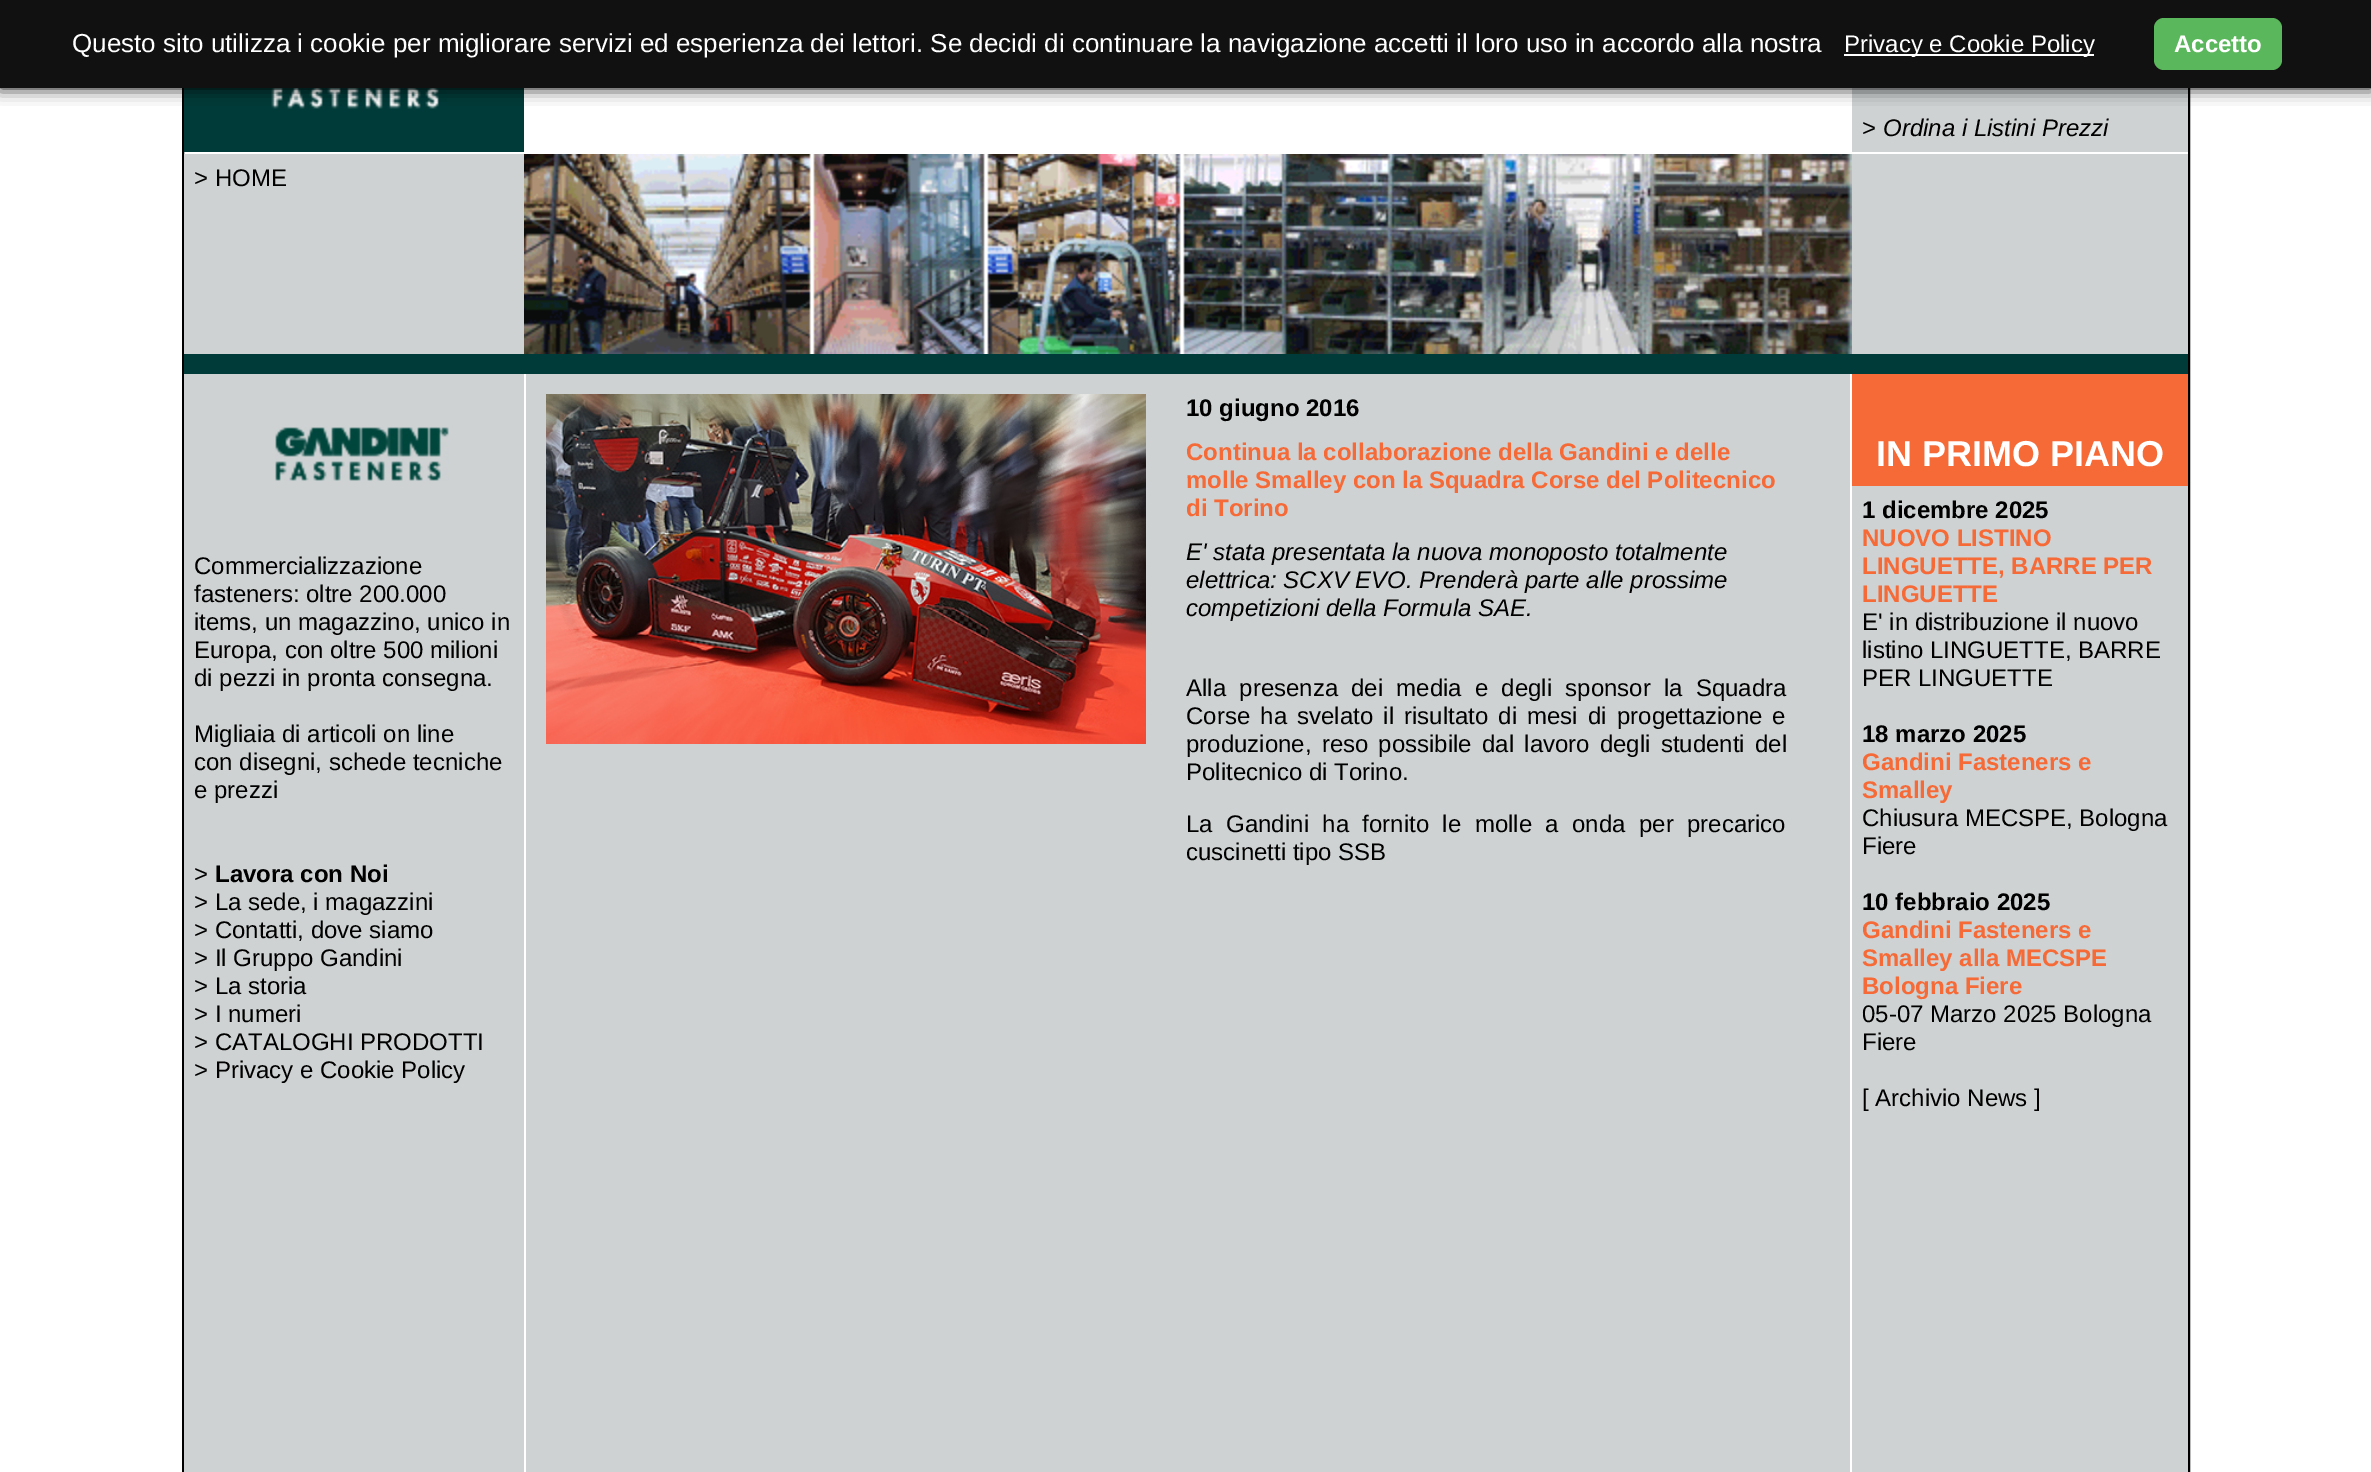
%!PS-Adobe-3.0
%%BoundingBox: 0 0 2371 1472
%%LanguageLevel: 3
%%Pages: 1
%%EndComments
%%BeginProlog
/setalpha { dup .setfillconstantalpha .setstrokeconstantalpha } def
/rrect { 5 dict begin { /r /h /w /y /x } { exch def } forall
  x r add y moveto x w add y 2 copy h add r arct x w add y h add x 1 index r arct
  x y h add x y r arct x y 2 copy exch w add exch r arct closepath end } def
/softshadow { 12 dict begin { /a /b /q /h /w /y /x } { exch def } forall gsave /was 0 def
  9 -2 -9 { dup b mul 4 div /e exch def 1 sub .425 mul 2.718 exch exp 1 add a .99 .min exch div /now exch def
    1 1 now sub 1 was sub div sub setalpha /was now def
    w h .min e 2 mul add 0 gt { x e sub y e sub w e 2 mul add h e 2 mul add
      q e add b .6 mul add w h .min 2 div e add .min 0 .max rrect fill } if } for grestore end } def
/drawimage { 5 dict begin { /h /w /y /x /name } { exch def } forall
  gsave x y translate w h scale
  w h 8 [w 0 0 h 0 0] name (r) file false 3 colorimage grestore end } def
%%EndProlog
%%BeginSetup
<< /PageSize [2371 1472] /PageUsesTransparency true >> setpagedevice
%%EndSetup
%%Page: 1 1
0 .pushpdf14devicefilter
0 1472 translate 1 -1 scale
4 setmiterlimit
1 setgray
0 0 2371 1472 rectfill
0 setgray
2 setlinewidth
183 -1 2006 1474 rectstroke
0.004 0.231 0.224 setrgbcolor
184 88 340 64 rectfill
(images/1.raw) 271 88 176 21 drawimage
0.808 0.824 0.827 setrgbcolor
1852 88 336 64 rectfill
0 setgray
0 0 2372 88 0 8 1 softshadow
0.067 setgray
0 0 2371 88 rectfill
1 setgray
1844 54 250 2 rectfill
0.357 0.718 0.357 setrgbcolor
2154 18 128 52 10 rrect fill
0.808 0.824 0.827 setrgbcolor
184 154 340 200 rectfill
(images/2.raw) 524 154 1328 200 drawimage
1852 154 336 200 rectfill
0.004 0.231 0.224 setrgbcolor
184 354 2004 20 rectfill
0.808 0.824 0.827 setrgbcolor
184 374 340 1098 rectfill
(images/3.raw) 275 427 174 54 drawimage
526 374 1324 1098 rectfill
(images/4.raw) 546 394 600 350 drawimage
1852 486 336 986 rectfill
0.965 0.416 0.216 setrgbcolor
1852 374 336 112 rectfill
/LiberationSans-Regular [26 0 0 -26 0 0] selectfont
1 setgray
72 52 moveto (Questo sito utilizza i cookie per migliorare servizi ed esperienza dei lettori. Se decidi di continuare la navigazione accetti il loro uso in accordo alla nostra) show
/LiberationSans-Regular [24 0 0 -24 0 0] selectfont
1844 52 moveto (Privacy e Cookie Policy) show
/LiberationSans-Bold [24 0 0 -24 0 0] selectfont
2174 52 moveto (Accetto) show
/LiberationSans-Regular [24 0 0 -24 0 0] selectfont
0 setgray
1862 136 moveto (>) show
/LiberationSans-Italic [24 0 0 -24 0 0] selectfont
1883 136 moveto (Ordina i Listini Prezzi) show
/LiberationSans-Regular [24 0 0 -24 0 0] selectfont
194 186 moveto (> HOME) show
194 574 moveto (Commercializzazione) show
194 602 moveto (fasteners: oltre 200.000) show
194 630 moveto (items, un magazzino, unico in) show
194 658 moveto (Europa, con oltre 500 milioni) show
194 686 moveto (di pezzi in pronta consegna.) show
194 742 moveto (Migliaia di articoli on line) show
194 770 moveto (con disegni, schede tecniche) show
194 798 moveto (e prezzi) show
194 882 moveto (>) show
/LiberationSans-Bold [24 0 0 -24 0 0] selectfont
215 882 moveto (Lavora con Noi) show
/LiberationSans-Regular [24 0 0 -24 0 0] selectfont
194 910 moveto (> La sede, i magazzini) show
194 938 moveto (> Contatti, dove siamo) show
194 966 moveto (> Il Gruppo Gandini) show
194 994 moveto (> La storia) show
194 1022 moveto (> I numeri) show
194 1050 moveto (> CATALOGHI PRODOTTI) show
194 1078 moveto (> Privacy e Cookie Policy) show
/LiberationSans-Bold [24 0 0 -24 0 0] selectfont
1186 416 moveto (10 giugno 2016) show
0.965 0.416 0.216 setrgbcolor
1186 460 moveto (Continua la collaborazione della Gandini e delle) show
1186 488 moveto (molle Smalley con la Squadra Corse del Politecnico) show
1186 516 moveto (di Torino) show
/LiberationSans-Italic [24 0 0 -24 0 0] selectfont
0 setgray
1186 560 moveto (E' stata presentata la nuova monoposto totalmente) show
1186 588 moveto (elettrica: SCXV EVO. Prenderà parte alle prossime) show
1186 616 moveto (competizioni della Formula SAE.) show
/LiberationSans-Regular [24 0 0 -24 0 0] selectfont
1186 696 moveto 6.5 0 32 (Alla presenza dei media e degli sponsor la Squadra) widthshow
1186 724 moveto 3.5 0 32 (Corse ha svelato il risultato di mesi di progettazione e) widthshow
1186 752 moveto 3.5 0 32 (produzione, reso possibile dal lavoro degli studenti del) widthshow
1186 780 moveto (Politecnico di Torino.) show
1186 832 moveto 6.75 0 32 (La Gandini ha fornito le molle a onda per precarico) widthshow
1186 860 moveto (cuscinetti tipo SSB) show
/LiberationSans-Bold [36 0 0 -36 0 0] selectfont
1 setgray
1876 466 moveto (IN PRIMO PIANO) show
/LiberationSans-Bold [24 0 0 -24 0 0] selectfont
0 setgray
1862 518 moveto (1 dicembre 2025) show
0.965 0.416 0.216 setrgbcolor
1862 546 moveto (NUOVO LISTINO) show
1862 574 moveto (LINGUETTE, BARRE PER) show
1862 602 moveto (LINGUETTE) show
/LiberationSans-Regular [24 0 0 -24 0 0] selectfont
0 setgray
1862 630 moveto (E' in distribuzione il nuovo) show
1862 658 moveto (listino LINGUETTE, BARRE) show
1862 686 moveto (PER LINGUETTE) show
/LiberationSans-Bold [24 0 0 -24 0 0] selectfont
1862 742 moveto (18 marzo 2025) show
0.965 0.416 0.216 setrgbcolor
1862 770 moveto (Gandini Fasteners e) show
1862 798 moveto (Smalley) show
/LiberationSans-Regular [24 0 0 -24 0 0] selectfont
0 setgray
1862 826 moveto (Chiusura MECSPE, Bologna) show
1862 854 moveto (Fiere) show
/LiberationSans-Bold [24 0 0 -24 0 0] selectfont
1862 910 moveto (10 febbraio 2025) show
0.965 0.416 0.216 setrgbcolor
1862 938 moveto (Gandini Fasteners e) show
1862 966 moveto (Smalley alla MECSPE) show
1862 994 moveto (Bologna Fiere) show
/LiberationSans-Regular [24 0 0 -24 0 0] selectfont
0 setgray
1862 1022 moveto (05-07 Marzo 2025 Bologna) show
1862 1050 moveto (Fiere) show
1862 1106 moveto ([ Archivio News ]) show
.poppdf14devicefilter showpage
%%EOF
